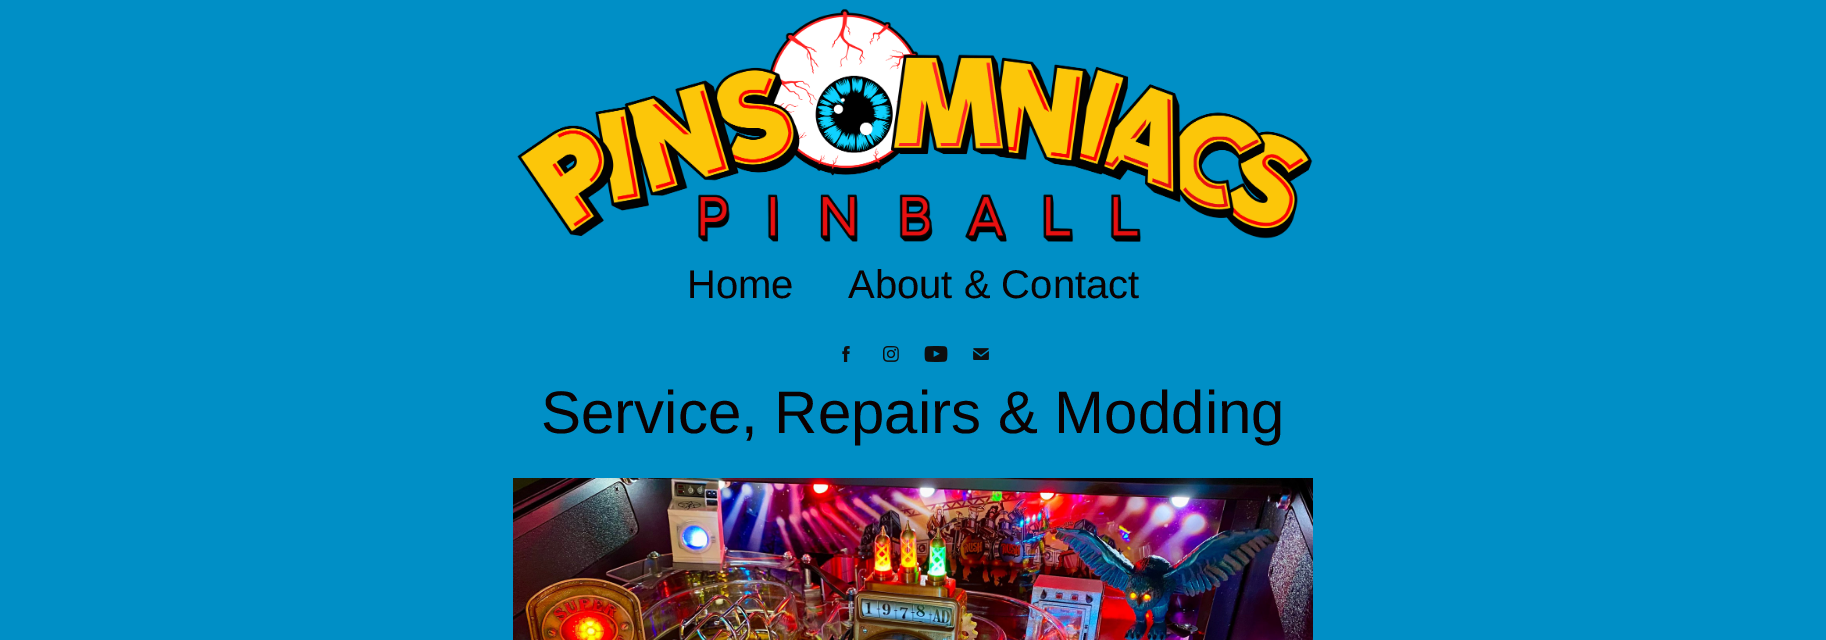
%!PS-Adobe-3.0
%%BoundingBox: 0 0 1826 640
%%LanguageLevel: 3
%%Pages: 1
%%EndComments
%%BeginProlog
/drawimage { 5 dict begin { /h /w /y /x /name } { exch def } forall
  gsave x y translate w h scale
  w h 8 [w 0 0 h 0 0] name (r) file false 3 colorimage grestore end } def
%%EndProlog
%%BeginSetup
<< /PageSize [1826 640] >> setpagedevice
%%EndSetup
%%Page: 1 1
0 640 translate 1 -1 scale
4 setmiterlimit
0 0.561 0.776 setrgbcolor
0 0 1826 640 rectfill
(images/1.raw) 517 8 796 234 drawimage
(images/2.raw) 842 346 8 16 drawimage
(images/3.raw) 883 346 16 16 drawimage
(images/4.raw) 924 346 24 16 drawimage
(images/5.raw) 973 348 16 12 drawimage
(images/6.raw) 513 478 800 162 drawimage
/LiberationSans-Regular [40 0 0 -40 0 0] selectfont
0.043 0.004 0.004 setrgbcolor
687 298 moveto (Home) show
848 298 moveto (About & Contact) show
/LiberationSans-Regular [60 0 0 -60 0 0] selectfont
541 433 moveto (Service, Repairs & Modding) show
showpage
%%EOF
